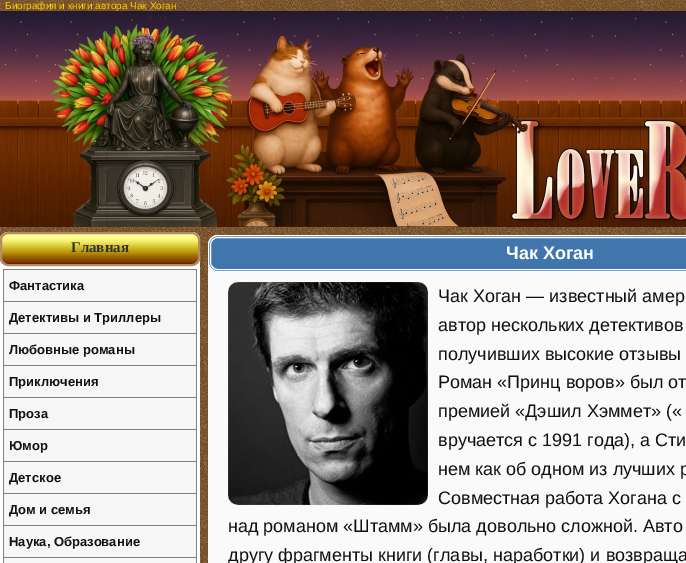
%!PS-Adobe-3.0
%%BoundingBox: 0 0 686 563
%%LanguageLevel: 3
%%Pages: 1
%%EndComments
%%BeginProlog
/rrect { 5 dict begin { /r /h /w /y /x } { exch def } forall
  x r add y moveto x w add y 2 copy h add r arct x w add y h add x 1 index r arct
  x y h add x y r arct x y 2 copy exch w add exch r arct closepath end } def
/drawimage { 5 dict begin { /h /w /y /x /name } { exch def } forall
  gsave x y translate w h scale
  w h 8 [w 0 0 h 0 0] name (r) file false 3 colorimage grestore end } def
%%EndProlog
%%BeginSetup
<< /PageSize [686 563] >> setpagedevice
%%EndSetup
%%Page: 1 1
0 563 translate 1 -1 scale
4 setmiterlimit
1 setgray
0 0 686 563 rectfill
(images/1.raw) 0 0 686 563 drawimage
0 232 200 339 8 rrect fill
(images/4.raw) 0 234 200 30 drawimage
0.706 0.549 0.392 setrgbcolor
2 setlinewidth
1 233 198 32 7 rrect stroke
0.502 setgray
3 269 194 1 rectfill
196 269 1 32 rectfill
3 269 1 32 rectfill
0.965 setgray
4 270 192 31 rectfill
0.502 setgray
3 301 194 1 rectfill
196 301 1 32 rectfill
3 301 1 32 rectfill
0.965 setgray
4 302 192 31 rectfill
0.502 setgray
3 333 194 1 rectfill
196 333 1 32 rectfill
3 333 1 32 rectfill
0.965 setgray
4 334 192 31 rectfill
0.502 setgray
3 365 194 1 rectfill
196 365 1 32 rectfill
3 365 1 32 rectfill
0.965 setgray
4 366 192 31 rectfill
0.502 setgray
3 397 194 1 rectfill
196 397 1 32 rectfill
3 397 1 32 rectfill
0.965 setgray
4 398 192 31 rectfill
0.502 setgray
3 429 194 1 rectfill
196 429 1 32 rectfill
3 429 1 32 rectfill
0.965 setgray
4 430 192 31 rectfill
0.502 setgray
3 461 194 1 rectfill
196 461 1 32 rectfill
3 461 1 32 rectfill
0.965 setgray
4 462 192 31 rectfill
0.502 setgray
3 493 194 1 rectfill
196 493 1 32 rectfill
3 493 1 32 rectfill
0.965 setgray
4 494 192 31 rectfill
0.502 setgray
3 525 194 1 rectfill
196 525 1 32 rectfill
3 525 1 32 rectfill
0.965 setgray
4 526 192 31 rectfill
0.502 setgray
3 557 194 1 rectfill
196 557 1 6 rectfill
3 557 1 6 rectfill
0.965 setgray
4 558 192 5 rectfill
0.98 setgray
208 235 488 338 10 rrect fill
0.255 0.463 0.675 setrgbcolor
208.5 235.5 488 36 9.5 rrect gsave fill grestore
1 setgray
1 setlinewidth
stroke
210.5 237.5 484 32 7.5 rrect stroke
(images/5.raw) 228 282 200 223 drawimage
/LiberationSans-Regular [10 0 0 -10 0 0] selectfont
1 0.8 0 setrgbcolor
5 9 moveto (Биография и книги автора Чак Хоган) show
(images/2.raw) 0 11 686 216 drawimage
(images/3.raw) 50 15 636 212 drawimage
/LiberationSerif-Bold [15 0 0 -15 0 0] selectfont
0.2 setgray
71 252 moveto (Главная) show
/LiberationSans-Bold [13 0 0 -13 0 0] selectfont
0.067 setgray
9 290 moveto (Фантастика) show
9 322 moveto (Детективы и Триллеры) show
9 354 moveto (Любовные романы) show
9 386 moveto (Приключения) show
9 418 moveto (Проза) show
9 450 moveto (Юмор) show
9 482 moveto (Детское) show
9 514 moveto (Дом и семья) show
9 546 moveto (Наука, Образование) show
/LiberationSans-Bold [18 0 0 -18 0 0] selectfont
1 setgray
506 259 moveto (Чак Хоган) show
/LiberationSans-Regular [18 0 0 -18 0 0] selectfont
0.067 setgray
438 302 moveto (Чак Хоган — известный амер) show
438 331 moveto (автор нескольких детективов) show
438 360 moveto (получивших высокие отзывы) show
438 388 moveto (Роман «Принц воров» был от) show
438 417 moveto (премией «Дэшил Хэммет» \(«) show
438 446 moveto (вручается с 1991 года\), а Сти) show
438 475 moveto (нем как об одном из лучших р) show
438 504 moveto (Совместная работа Хогана с) show
228 532 moveto (над романом «Штамм» была довольно сложной. Авто) show
228 561 moveto (другу фрагменты книги \(главы, наработки\) и возвраща) show
showpage
%%EOF
